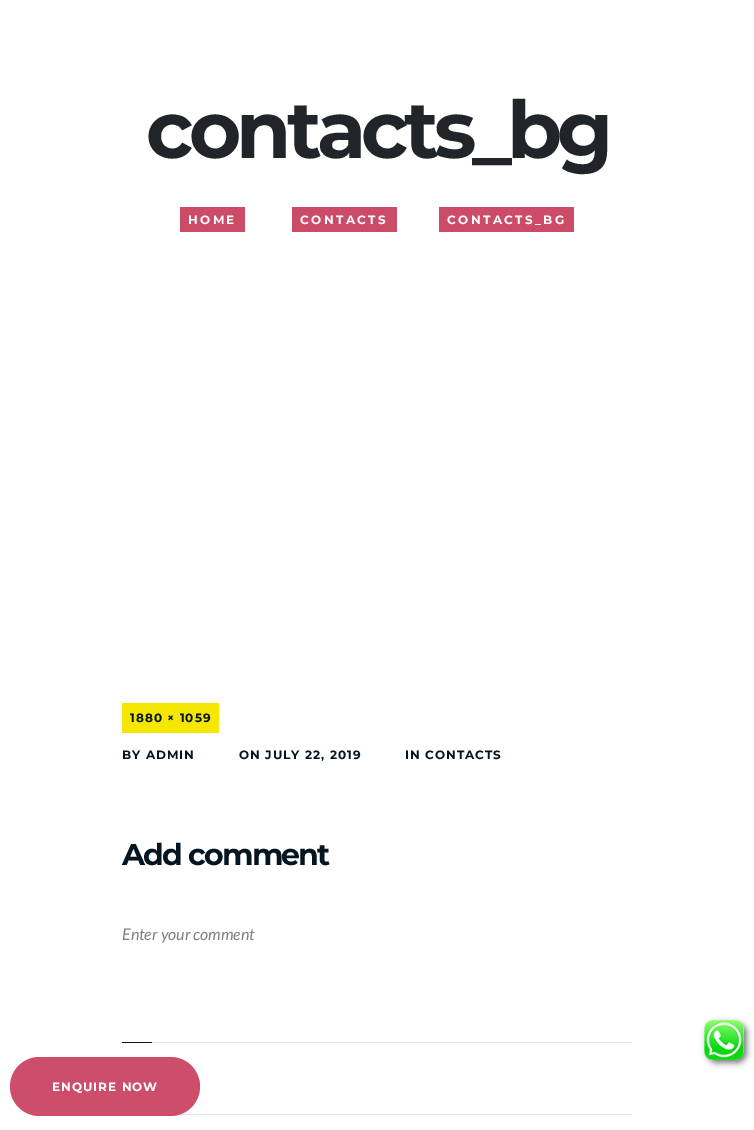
%!PS-Adobe-3.0
%%BoundingBox: 0 0 754 1130
%%LanguageLevel: 3
%%Pages: 1
%%EndComments
%%BeginProlog
/setalpha { dup .setfillconstantalpha .setstrokeconstantalpha } def
/rrect { 5 dict begin { /r /h /w /y /x } { exch def } forall
  x r add y moveto x w add y 2 copy h add r arct x w add y h add x 1 index r arct
  x y h add x y r arct x y 2 copy exch w add exch r arct closepath end } def
/softshadow { 12 dict begin { /a /b /q /h /w /y /x } { exch def } forall gsave /was 0 def
  9 -2 -9 { dup b mul 4 div /e exch def 1 sub .425 mul 2.718 exch exp 1 add a .99 .min exch div /now exch def
    1 1 now sub 1 was sub div sub setalpha /was now def
    w h .min e 2 mul add 0 gt { x e sub y e sub w e 2 mul add h e 2 mul add
      q e add b .6 mul add w h .min 2 div e add .min 0 .max rrect fill } if } for grestore end } def
/drawimage { 5 dict begin { /h /w /y /x /name } { exch def } forall
  gsave x y translate w h scale
  w h 8 [w 0 0 h 0 0] name (r) file false 3 colorimage grestore end } def
%%EndProlog
%%BeginSetup
<< /PageSize [754 1130] /PageUsesTransparency true >> setpagedevice
%%EndSetup
%%Page: 1 1
0 .pushpdf14devicefilter
0 1130 translate 1 -1 scale
4 setmiterlimit
1 setgray
0 0 754 1130 rectfill
0.8 0.294 0.404 setrgbcolor
180 207 65 25 rectfill
292 207 105 25 rectfill
439 207 135 25 rectfill
0.965 0.906 0 setrgbcolor
122 703 97 30 1 rrect fill
0.902 0.91 0.914 setrgbcolor
152 1042 480 1 rectfill
0.012 0.082 0.129 setrgbcolor
122 1042 30 1 rectfill
0.902 0.91 0.914 setrgbcolor
178 1114 454 1 rectfill
0 setgray
707 1023 40 40 10 3 0.5 softshadow
(images/1.raw) 704 1020 40 40 drawimage
0.804 0.306 0.416 setrgbcolor
10 1057 190 59 29.5 rrect fill
/Montserrat-Bold [80 0 0 -80 0 0] selectfont
0.129 0.145 0.161 setrgbcolor
146 158 moveto -4.75 0 (contacts_bg) ashow
/Montserrat-Bold [12 0 0 -12 0 0] selectfont
1 setgray
188 224 moveto 2.4 0 (HOME) ashow
300 224 moveto 2.4 0 (CONTACTS) ashow
447 224 moveto 2.4 0 (CONTACTS_BG) ashow
0.012 0.082 0.129 setrgbcolor
130 722 moveto 1 0 (1880 × 1059) ashow
122 759 moveto 1 0 (BY ADMIN) ashow
239 759 moveto 1 0 (ON JULY 22, 2019) ashow
405 759 moveto 1 0 (IN CONTACTS) ashow
/Montserrat-Bold [30 0 0 -30 0 0] selectfont
122 865 moveto -1.75 0 (Add comment) ashow
/Lato-Italic [16 0 0 -16 0 0] selectfont
0.502 setgray
122 940 moveto (Enter your comment) show
/Montserrat-Bold [12 0 0 -12 0 0] selectfont
1 setgray
52 1091 moveto 1 0 (ENQUIRE NOW) ashow
.poppdf14devicefilter showpage
%%EOF
